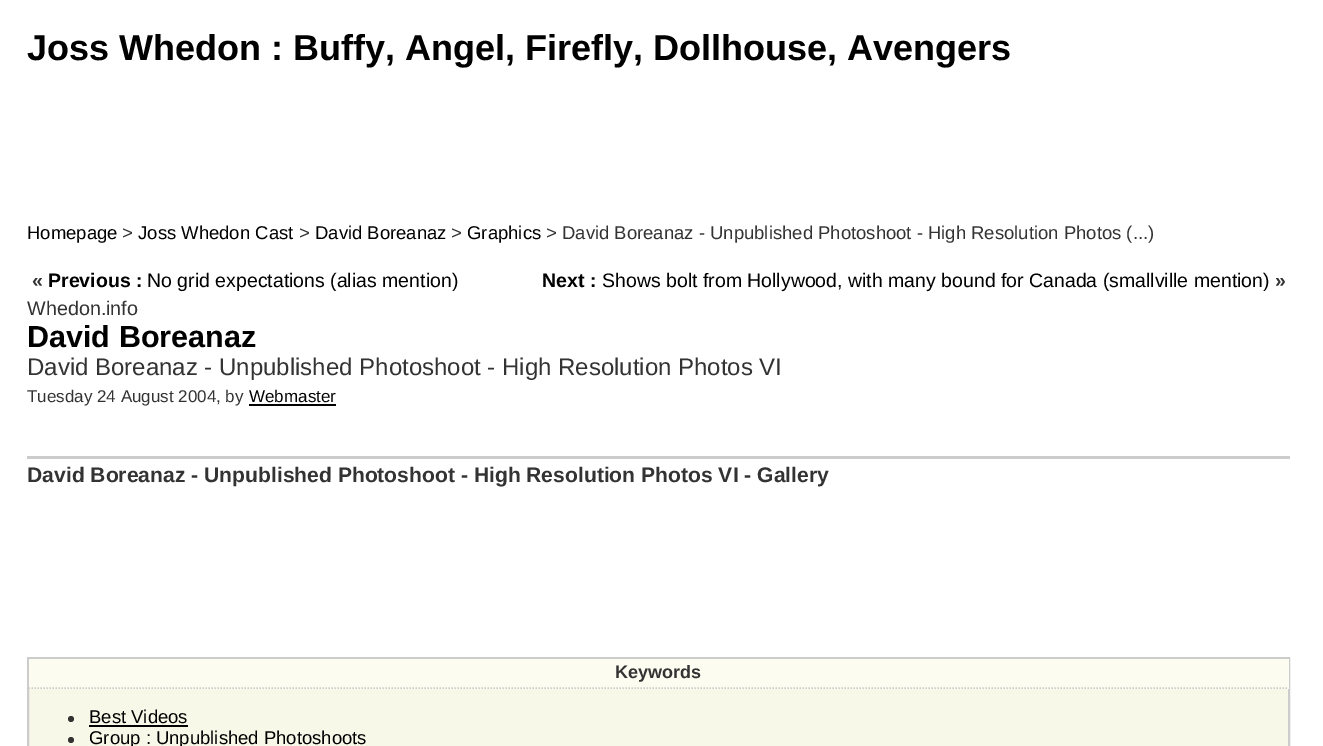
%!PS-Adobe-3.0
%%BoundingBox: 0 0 1323 746
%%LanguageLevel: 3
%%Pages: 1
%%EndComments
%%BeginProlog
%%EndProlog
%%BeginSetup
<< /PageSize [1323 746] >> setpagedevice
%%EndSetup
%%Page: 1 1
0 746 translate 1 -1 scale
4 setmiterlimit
1 setgray
0 0 1323 746 rectfill
0 setgray
249 404 87 2 rectfill
0.8 setgray
27 456 1263 3 rectfill
0.973 0.973 0.91 setrgbcolor
29 689 1259 57 rectfill
0.8 setgray
2 setlinewidth
28 658 1261 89 rectstroke
0.988 0.988 0.941 setrgbcolor
29 659 1260 30 rectfill
0.8 setgray
1.5 setlinewidth
[1.5 1.5] 0 setdash
newpath 28.5 688 moveto 1288.5 688 lineto stroke
0.2 setgray
newpath 71 719 3 0 360 arc closepath fill
0 setgray
89 725 99 2 rectfill
0.2 setgray
newpath 71 740 3 0 360 arc closepath fill
/LiberationSans-Bold [36 0 0 -36 0 0] selectfont
0 setgray
27 60 moveto (Joss Whedon : Buffy, Angel, Firefly, Dollhouse, Avengers) show
/LiberationSans-Regular [18.5 0 0 -18.5 0 0] selectfont
27 239 moveto (Homepage) show
0.2 setgray
122 239 moveto (>) show
0 setgray
138 239 moveto (Joss Whedon Cast) show
0.2 setgray
299 239 moveto (>) show
0 setgray
315 239 moveto (David Boreanaz) show
0.2 setgray
451 239 moveto (>) show
0 setgray
467 239 moveto (Graphics) show
0.2 setgray
546 239 moveto (> David Boreanaz - Unpublished Photoshoot - High Resolution Photos \(...\)) show
/LiberationSans-Bold [19.5 0 0 -19.5 0 0] selectfont
32 287 moveto («) show
0 setgray
48 287 moveto (Previous :) show
/LiberationSans-Regular [19.5 0 0 -19.5 0 0] selectfont
147 287 moveto (No grid expectations \(alias mention\)) show
/LiberationSans-Bold [19.5 0 0 -19.5 0 0] selectfont
542 287 moveto (Next :) show
/LiberationSans-Regular [19.5 0 0 -19.5 0 0] selectfont
602 287 moveto (Shows bolt from Hollywood, with many bound for Canada \(smallville mention\)) show
/LiberationSans-Bold [19.5 0 0 -19.5 0 0] selectfont
0.2 setgray
1275 287 moveto (») show
/LiberationSans-Regular [19.75 0 0 -19.75 0 0] selectfont
27 315 moveto (Whedon.info) show
/LiberationSans-Bold [30.5 0 0 -30.5 0 0] selectfont
0 setgray
27 347 moveto (David Boreanaz) show
/LiberationSans-Regular [24 0 0 -24 0 0] selectfont
0.2 setgray
27 375 moveto (David Boreanaz - Unpublished Photoshoot - High Resolution Photos VI) show
/LiberationSans-Regular [17 0 0 -17 0 0] selectfont
27 402 moveto (Tuesday 24 August 2004, by) show
0 setgray
249 402 moveto (Webmaster) show
/LiberationSans-Bold [21.1 0 0 -21.1 0 0] selectfont
0.2 setgray
27 482 moveto (David Boreanaz - Unpublished Photoshoot - High Resolution Photos VI - Gallery) show
/LiberationSans-Bold [18 0 0 -18 0 0] selectfont
615 678 moveto (Keywords) show
/LiberationSans-Regular [18.5 0 0 -18.5 0 0] selectfont
0 setgray
89 723 moveto (Best Videos) show
89 744 moveto (Group : Unpublished Photoshoots) show
showpage
%%EOF
